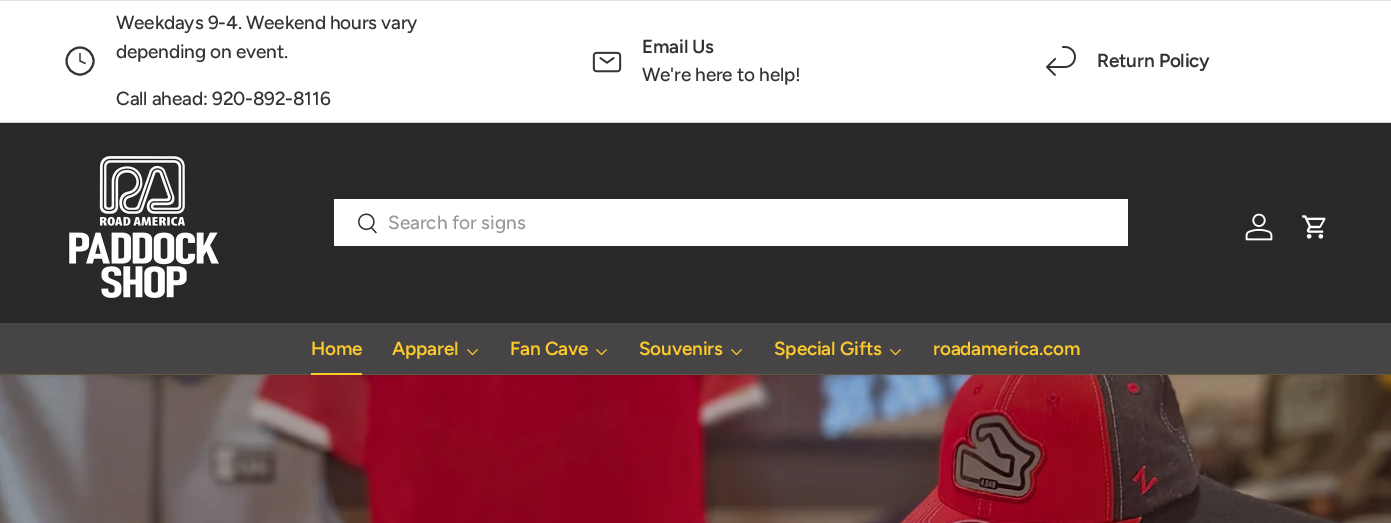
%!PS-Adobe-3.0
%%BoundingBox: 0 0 1391 523
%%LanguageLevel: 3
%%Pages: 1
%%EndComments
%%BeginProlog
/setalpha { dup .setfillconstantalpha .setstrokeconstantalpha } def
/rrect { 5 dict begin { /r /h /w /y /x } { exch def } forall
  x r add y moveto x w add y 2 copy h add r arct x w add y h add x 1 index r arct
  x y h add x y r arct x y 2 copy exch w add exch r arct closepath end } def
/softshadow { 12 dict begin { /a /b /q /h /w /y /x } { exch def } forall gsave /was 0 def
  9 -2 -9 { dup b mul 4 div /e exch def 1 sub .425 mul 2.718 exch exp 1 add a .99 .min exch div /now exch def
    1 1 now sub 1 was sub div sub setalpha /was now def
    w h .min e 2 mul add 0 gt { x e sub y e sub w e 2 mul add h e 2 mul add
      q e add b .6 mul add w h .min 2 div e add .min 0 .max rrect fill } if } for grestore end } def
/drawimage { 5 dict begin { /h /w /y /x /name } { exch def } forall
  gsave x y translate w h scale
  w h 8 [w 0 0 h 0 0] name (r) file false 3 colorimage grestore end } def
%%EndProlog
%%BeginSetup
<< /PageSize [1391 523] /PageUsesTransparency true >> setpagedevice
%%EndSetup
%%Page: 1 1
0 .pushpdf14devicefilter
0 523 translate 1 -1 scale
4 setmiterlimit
1 setgray
0 0 1391 523 rectfill
0.878 setgray
0 0 1391 1 rectfill
0 122 1391 1 rectfill
0.2 setgray
2 setlinewidth
newpath 80 61 13.5 0 360 arc closepath stroke
1.3 setlinewidth
newpath 80 53 moveto 80 61 lineto 85.5 63.5 lineto stroke
(images/1.raw) 592 51 30 22 drawimage
(images/2.raw) 1046 46 30 30 drawimage
(images/7.raw) 0 375 1391 148 drawimage
0 setgray
-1 122 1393 254 0 1.5 0.08 softshadow
0.161 0.157 0.157 setrgbcolor
0 123 1391 200 rectfill
(images/3.raw) 68 155 151 144 drawimage
1 setgray
334 199 794 47 rectfill
(images/4.raw) 358 213 19 21 drawimage
(images/5.raw) 1245 213 28 28 drawimage
(images/6.raw) 1302 215 24 24 drawimage
0.275 0.267 0.267 setrgbcolor
0 323 1391 51 rectfill
0.38 0.345 0.251 setrgbcolor
0 374 1391 1 rectfill
0.988 0.792 0.173 setrgbcolor
311 373 51 2 rectfill
1 setlinewidth
newpath 477.5 349.5 moveto 472.5 354.5 lineto 467.5 349.5 lineto stroke
newpath 606.5 349.5 moveto 601.5 354.5 lineto 596.5 349.5 lineto stroke
newpath 741.5 349.5 moveto 736.5 354.5 lineto 731.5 349.5 lineto stroke
newpath 900.5 349.5 moveto 895.5 354.5 lineto 890.5 349.5 lineto stroke
/Figtree-Medium [19 0 0 -19 0 0] selectfont
0.2 setgray
116 29 moveto -0.2 0 (Weekdays 9-4. Weekend hours vary) ashow
116 58 moveto -0.2 0 (depending on event.) ashow
116 105 moveto -0.2 0 (Call ahead: 920-892-8116) ashow
/Figtree-SemiBold [19 0 0 -19 0 0] selectfont
642 53 moveto -0.2 0 (Email Us) ashow
/Figtree-Medium [19 0 0 -19 0 0] selectfont
642 81 moveto -0.2 0 (We're here to help!) ashow
/Figtree-SemiBold [19 0 0 -19 0 0] selectfont
1097 67 moveto -0.2 0 (Return Policy) ashow
/Figtree-Medium [19 0 0 -19 0 0] selectfont
0.6 setgray
388 229 moveto (Search for signs) show
/Figtree-SemiBold [19 0 0 -19 0 0] selectfont
0.988 0.792 0.173 setrgbcolor
311 355 moveto -0.2 0 (Home) ashow
392 355 moveto -0.2 0 (Apparel) ashow
510 355 moveto -0.2 0 (Fan Cave) ashow
639 355 moveto -0.2 0 (Souvenirs) ashow
774 355 moveto -0.2 0 (Special Gifts) ashow
933 355 moveto -0.2 0 (roadamerica.com) ashow
.poppdf14devicefilter showpage
%%EOF
